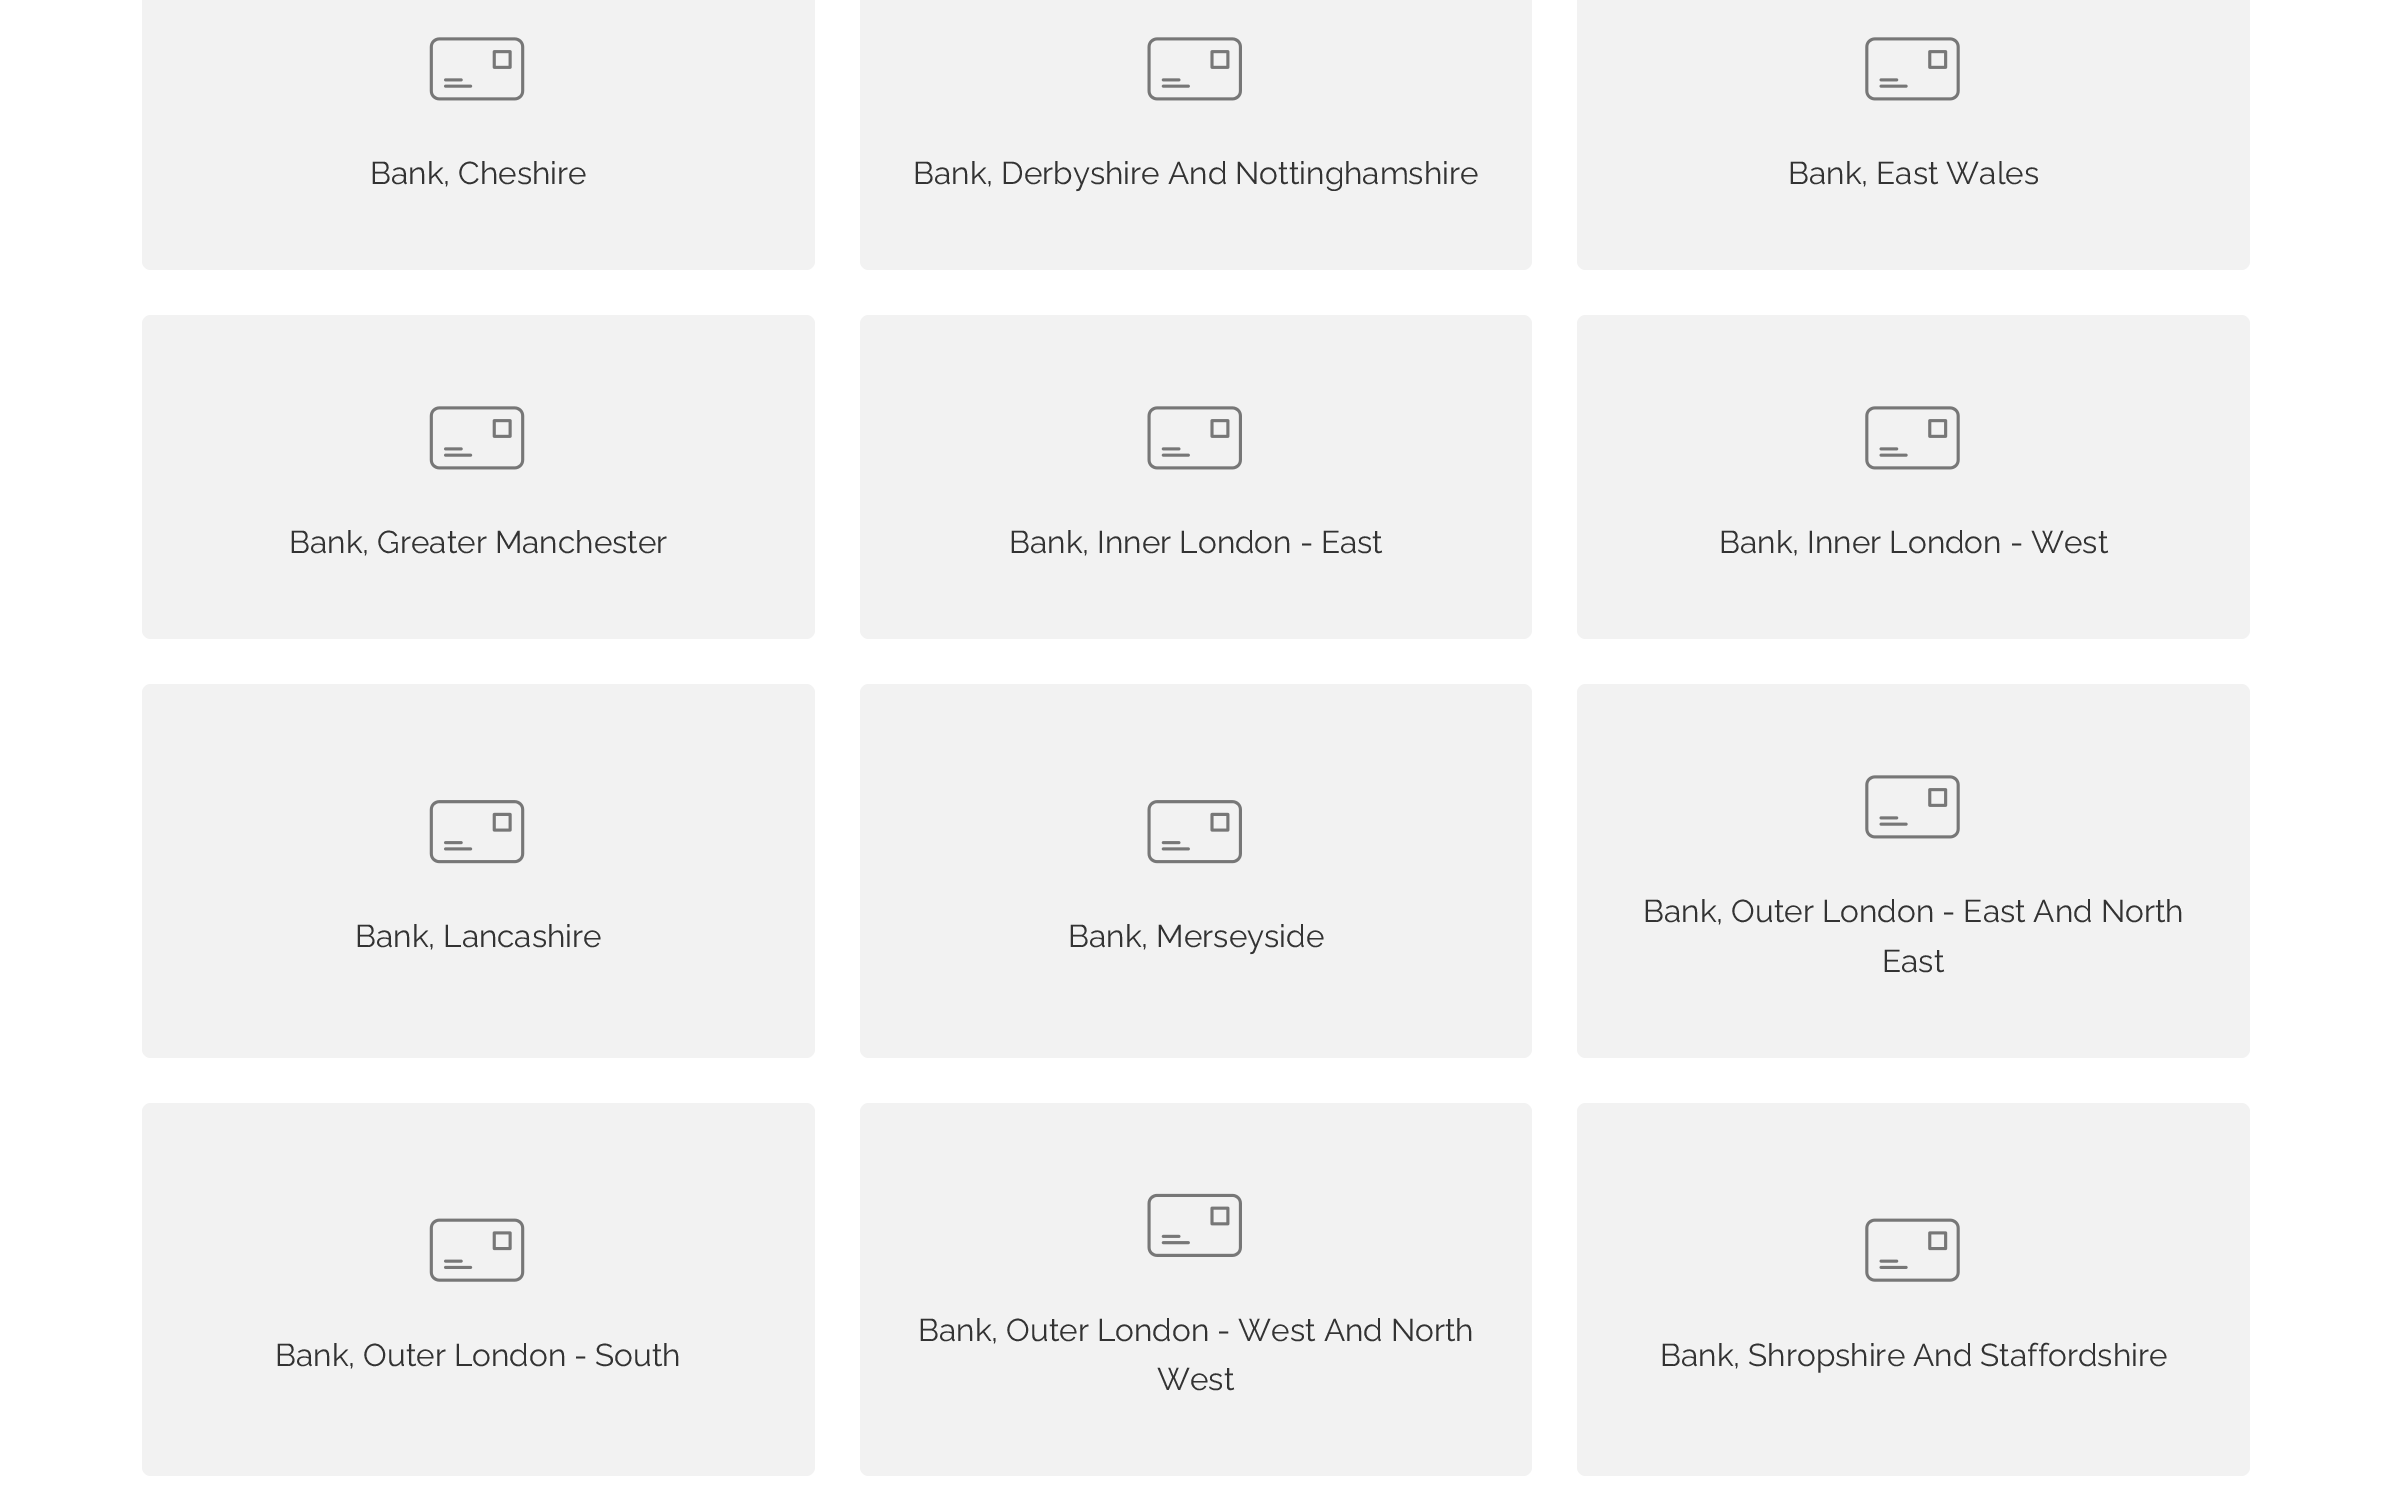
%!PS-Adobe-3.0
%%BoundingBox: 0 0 2398 1498
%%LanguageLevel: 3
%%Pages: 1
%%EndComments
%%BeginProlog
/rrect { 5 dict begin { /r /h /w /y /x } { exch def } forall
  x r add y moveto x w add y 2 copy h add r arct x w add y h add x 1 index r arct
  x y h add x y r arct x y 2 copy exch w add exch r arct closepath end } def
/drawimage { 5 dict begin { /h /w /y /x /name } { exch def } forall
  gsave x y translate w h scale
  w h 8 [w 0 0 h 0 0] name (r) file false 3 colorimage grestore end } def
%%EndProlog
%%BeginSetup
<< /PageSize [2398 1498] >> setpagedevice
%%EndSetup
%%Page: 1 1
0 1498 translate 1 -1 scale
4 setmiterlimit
1 setgray
0 0 2398 1498 rectfill
0.949 setgray
142 -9 673 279 9 rrect fill
(images/1.raw) 429 37 96 64 drawimage
860 -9 672 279 9 rrect fill
(images/2.raw) 1147 37 95 64 drawimage
1577 -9 673 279 9 rrect fill
(images/3.raw) 1865 37 95 64 drawimage
142 315 673 324 9 rrect fill
(images/1.raw) 429 406 96 64 drawimage
860 315 672 324 9 rrect fill
(images/2.raw) 1147 406 95 64 drawimage
1577 315 673 324 9 rrect fill
(images/3.raw) 1865 406 95 64 drawimage
142 684 673 374 9 rrect fill
(images/4.raw) 429 800 96 64 drawimage
860 684 672 374 9 rrect fill
(images/5.raw) 1147 800 95 64 drawimage
1577 684 673 374 9 rrect fill
(images/3.raw) 1865 775 95 64 drawimage
142 1103 673 373 9 rrect fill
(images/6.raw) 429 1218 96 64 drawimage
860 1103 672 373 9 rrect fill
(images/7.raw) 1147 1193 95 64 drawimage
1577 1103 673 373 9 rrect fill
(images/8.raw) 1865 1218 95 64 drawimage
/Raleway-Regular [31.5 0 0 -31.5 0 0] selectfont
0.2 setgray
370 184 moveto (Bank, Cheshire) show
913 184 moveto (Bank, Derbyshire And Nottinghamshire) show
1788 184 moveto (Bank, East Wales) show
289 553 moveto (Bank, Greater Manchester) show
1009 553 moveto (Bank, Inner London - East) show
1719 553 moveto (Bank, Inner London - West) show
355 947 moveto (Bank, Lancashire) show
1068 947 moveto (Bank, Merseyside) show
1643 922 moveto (Bank, Outer London - East And North) show
1882 972 moveto (East) show
275 1366 moveto (Bank, Outer London - South) show
918 1341 moveto (Bank, Outer London - West And North) show
1157 1390 moveto (West) show
1660 1366 moveto (Bank, Shropshire And Staffordshire) show
showpage
%%EOF
